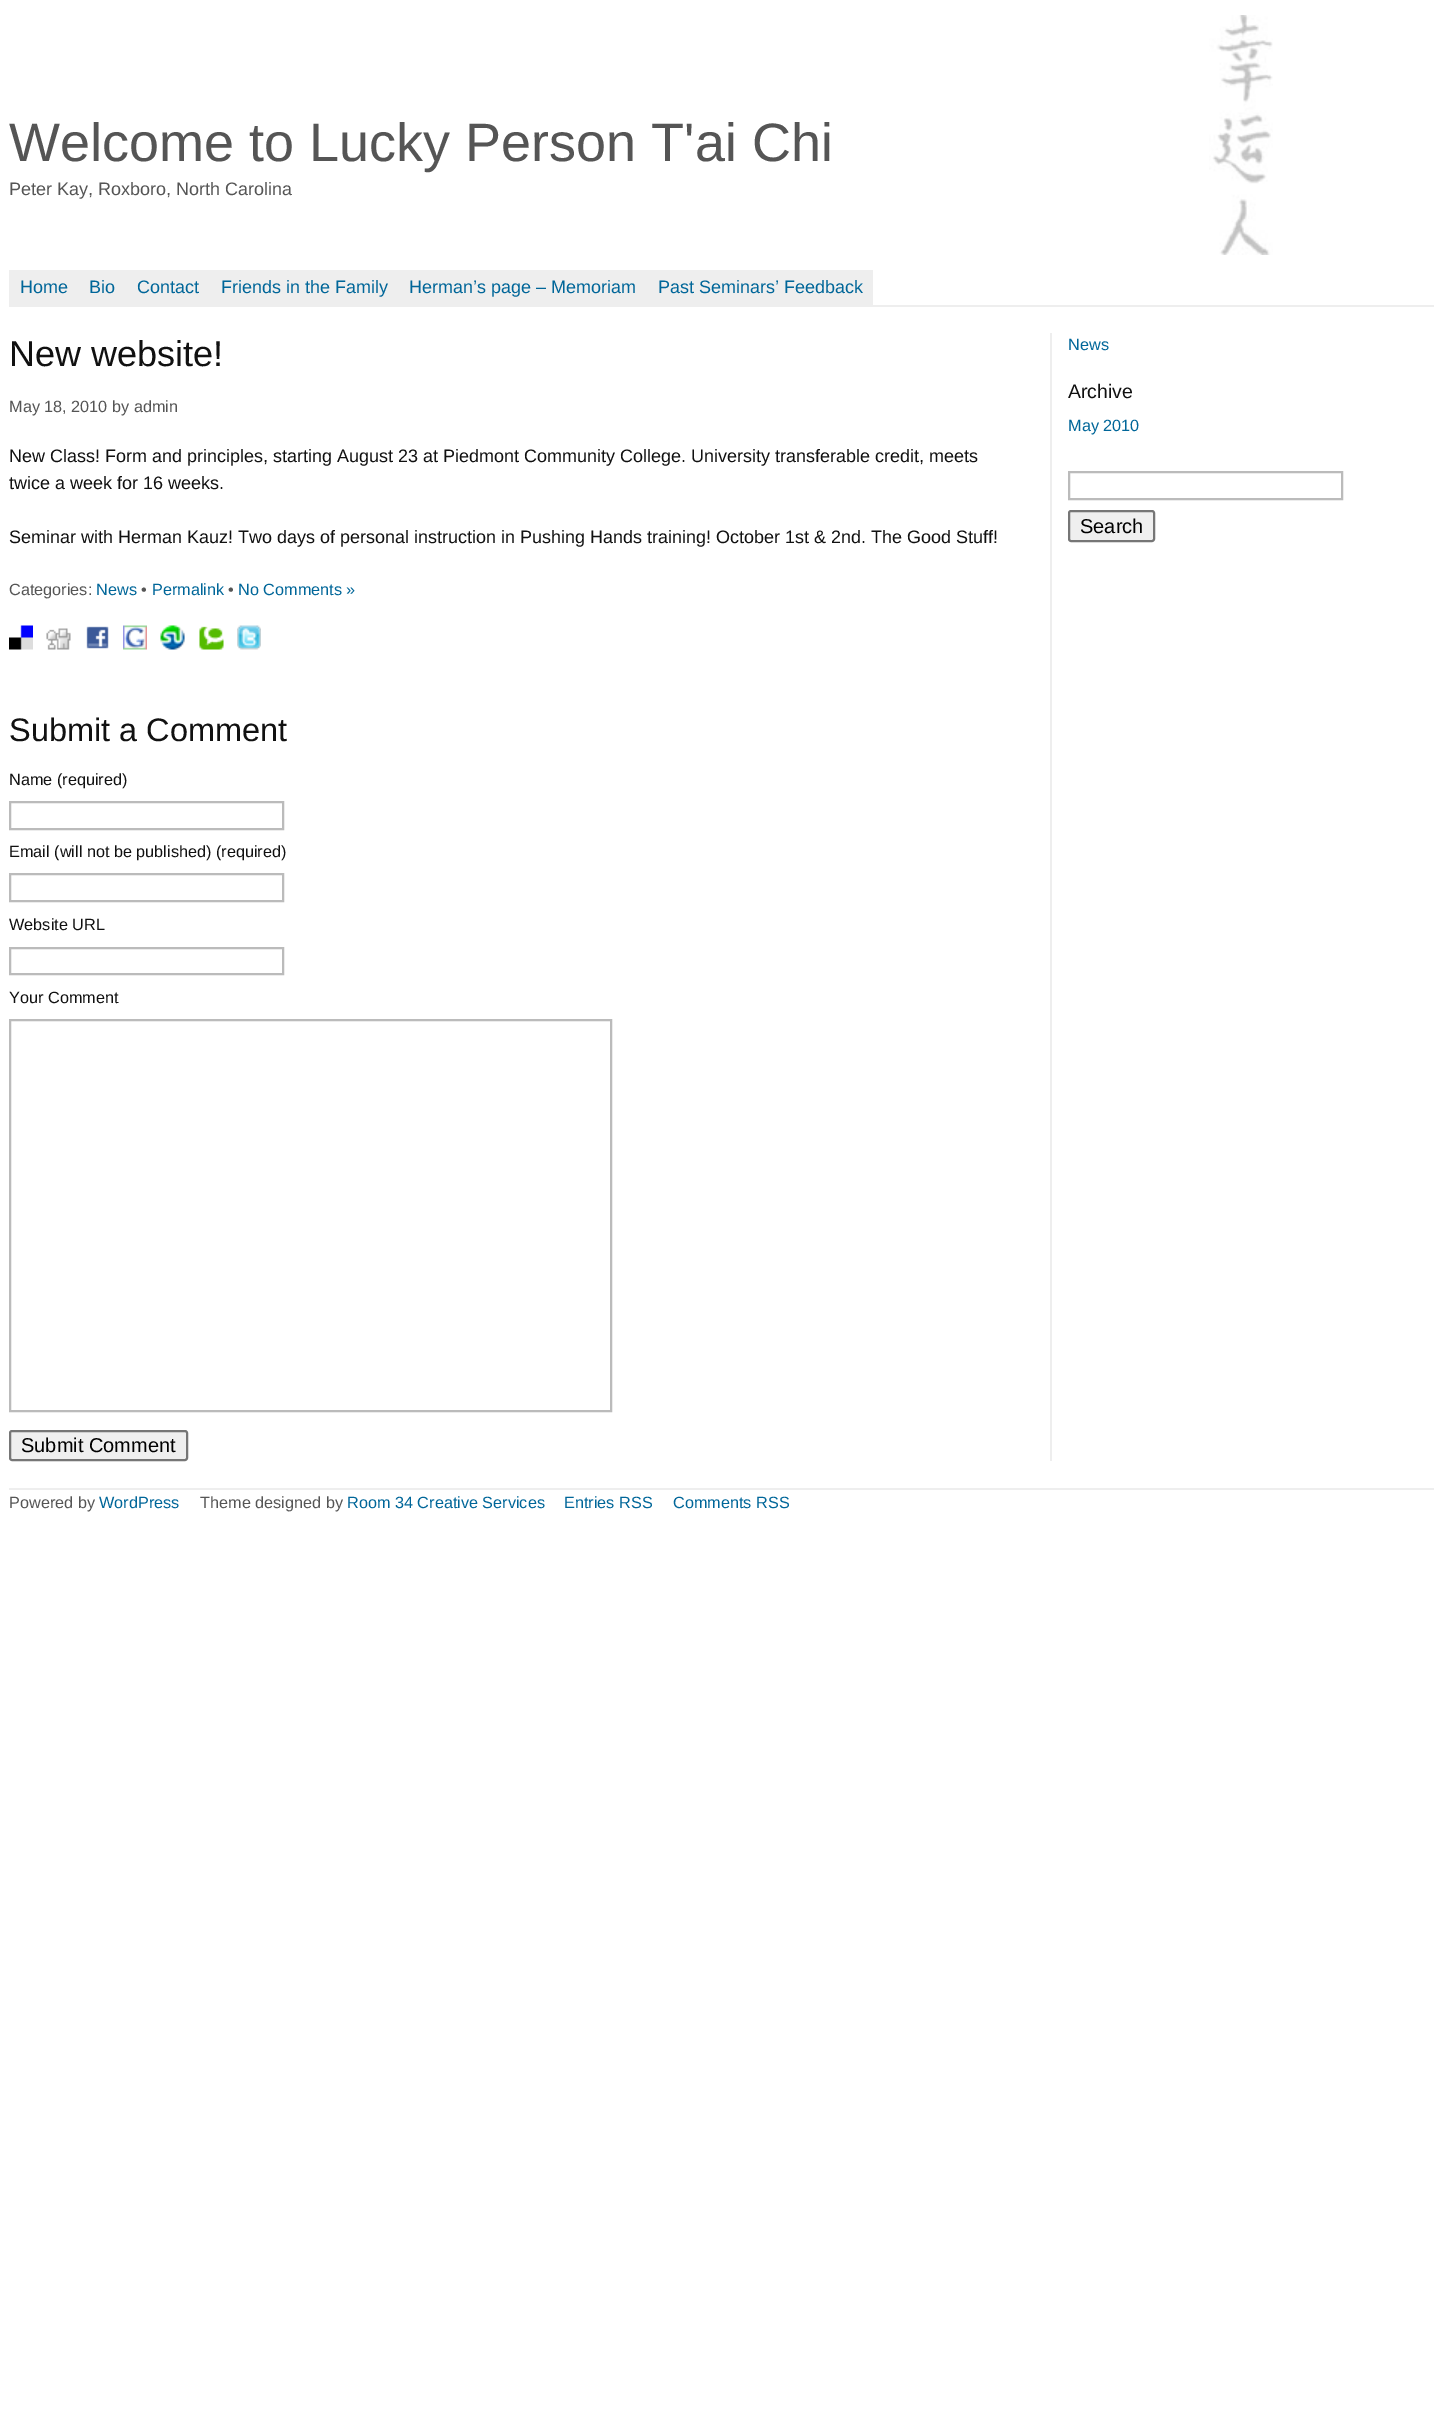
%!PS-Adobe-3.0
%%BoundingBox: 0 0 1442 2425
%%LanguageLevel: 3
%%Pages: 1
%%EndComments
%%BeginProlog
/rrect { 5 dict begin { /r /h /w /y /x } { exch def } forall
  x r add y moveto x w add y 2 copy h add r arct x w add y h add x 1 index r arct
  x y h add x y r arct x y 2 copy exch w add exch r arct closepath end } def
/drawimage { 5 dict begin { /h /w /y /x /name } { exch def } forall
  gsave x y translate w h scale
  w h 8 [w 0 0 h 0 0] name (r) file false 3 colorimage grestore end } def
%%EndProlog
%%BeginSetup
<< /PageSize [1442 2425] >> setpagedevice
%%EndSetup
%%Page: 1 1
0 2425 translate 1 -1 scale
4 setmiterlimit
1 setgray
0 0 1442 2425 rectfill
(images/1.raw) 1209 15 64 240 drawimage
0.933 setgray
9 305 1425 2 rectfill
9 270 864 35 rectfill
1050 333 2 1128 rectfill
(images/2.raw) 9 625 24 25 drawimage
(images/3.raw) 46 628 25 22 drawimage
(images/4.raw) 86 626 23 23 drawimage
(images/5.raw) 123 625 24 25 drawimage
(images/6.raw) 160 625 25 25 drawimage
(images/7.raw) 199 626 25 24 drawimage
(images/8.raw) 237 625 24 25 drawimage
0.733 setgray
2 setlinewidth
10 802 273 27 rectstroke
10 874 273 27 rectstroke
10 948 273 26 rectstroke
10 1020 601 391 rectstroke
0.937 setgray
10 1431 177 29 2 rrect gsave fill grestore
0.463 setgray
stroke
0.733 setgray
1069 472 273 27 rectstroke
0.937 setgray
1069 511 85 30 2 rrect gsave fill grestore
0.463 setgray
stroke
0.933 setgray
9 1488 1425 2 rectfill
/LiberationSans-Regular [54 0 0 -54 0 0] selectfont
0.333 setgray
9 161 moveto (Welcome to Lucky Person T'ai Chi) show
/LiberationSans-Regular [18 0 0 -18 0 0] selectfont
9 195 moveto (Peter Kay, Roxboro, North Carolina) show
0 0.4 0.6 setrgbcolor
20 293 moveto (Home) show
89 293 moveto (Bio) show
137 293 moveto (Contact) show
221 293 moveto (Friends in the Family) show
409 293 moveto (Herman’s page – Memoriam) show
658 293 moveto (Past Seminars’ Feedback) show
/LiberationSans-Regular [36 0 0 -36 0 0] selectfont
0.067 setgray
9 366 moveto (New website!) show
/LiberationSans-Regular [16.25 0 0 -16.25 0 0] selectfont
0.333 setgray
9 412 moveto (May 18, 2010 by admin) show
/LiberationSans-Regular [18 0 0 -18 0 0] selectfont
0.067 setgray
9 462 moveto (New Class! Form and principles, starting August 23 at Piedmont Community College. University transferable credit, meets) show
9 489 moveto (twice a week for 16 weeks.) show
9 543 moveto (Seminar with Herman Kauz! Two days of personal instruction in Pushing Hands training! October 1st & 2nd. The Good Stuff!) show
/LiberationSans-Regular [16.25 0 0 -16.25 0 0] selectfont
0.333 setgray
9 595 moveto (Categories:) show
0 0.4 0.6 setrgbcolor
96 595 moveto (News) show
0.333 setgray
141 595 moveto (•) show
0 0.4 0.6 setrgbcolor
152 595 moveto (Permalink) show
0.333 setgray
228 595 moveto (•) show
0 0.4 0.6 setrgbcolor
238 595 moveto (No Comments ») show
/LiberationSans-Regular [32.5 0 0 -32.5 0 0] selectfont
0.067 setgray
9 741 moveto (Submit a Comment) show
/LiberationSans-Regular [16.25 0 0 -16.25 0 0] selectfont
9 785 moveto (Name \(required\)) show
9 857 moveto (Email \(will not be published\) \(required\)) show
9 930 moveto (Website URL) show
9 1003 moveto (Your Comment) show
/LiberationSans-Regular [20 0 0 -20 0 0] selectfont
0 setgray
21 1452 moveto (Submit Comment) show
/LiberationSans-Regular [16.25 0 0 -16.25 0 0] selectfont
0 0.4 0.6 setrgbcolor
1068 350 moveto (News) show
/LiberationSans-Regular [19.5 0 0 -19.5 0 0] selectfont
0.067 setgray
1068 398 moveto (Archive) show
/LiberationSans-Regular [16.25 0 0 -16.25 0 0] selectfont
0 0.4 0.6 setrgbcolor
1068 431 moveto (May 2010) show
/LiberationSans-Regular [20 0 0 -20 0 0] selectfont
0 setgray
1080 533 moveto (Search) show
/LiberationSans-Regular [16.25 0 0 -16.25 0 0] selectfont
0.333 setgray
9 1508 moveto (Powered by) show
0 0.4 0.6 setrgbcolor
99 1508 moveto (WordPress) show
0.333 setgray
200 1508 moveto (Theme designed by) show
0 0.4 0.6 setrgbcolor
347 1508 moveto (Room 34 Creative Services) show
564 1508 moveto (Entries RSS) show
673 1508 moveto (Comments RSS) show
showpage
%%EOF
